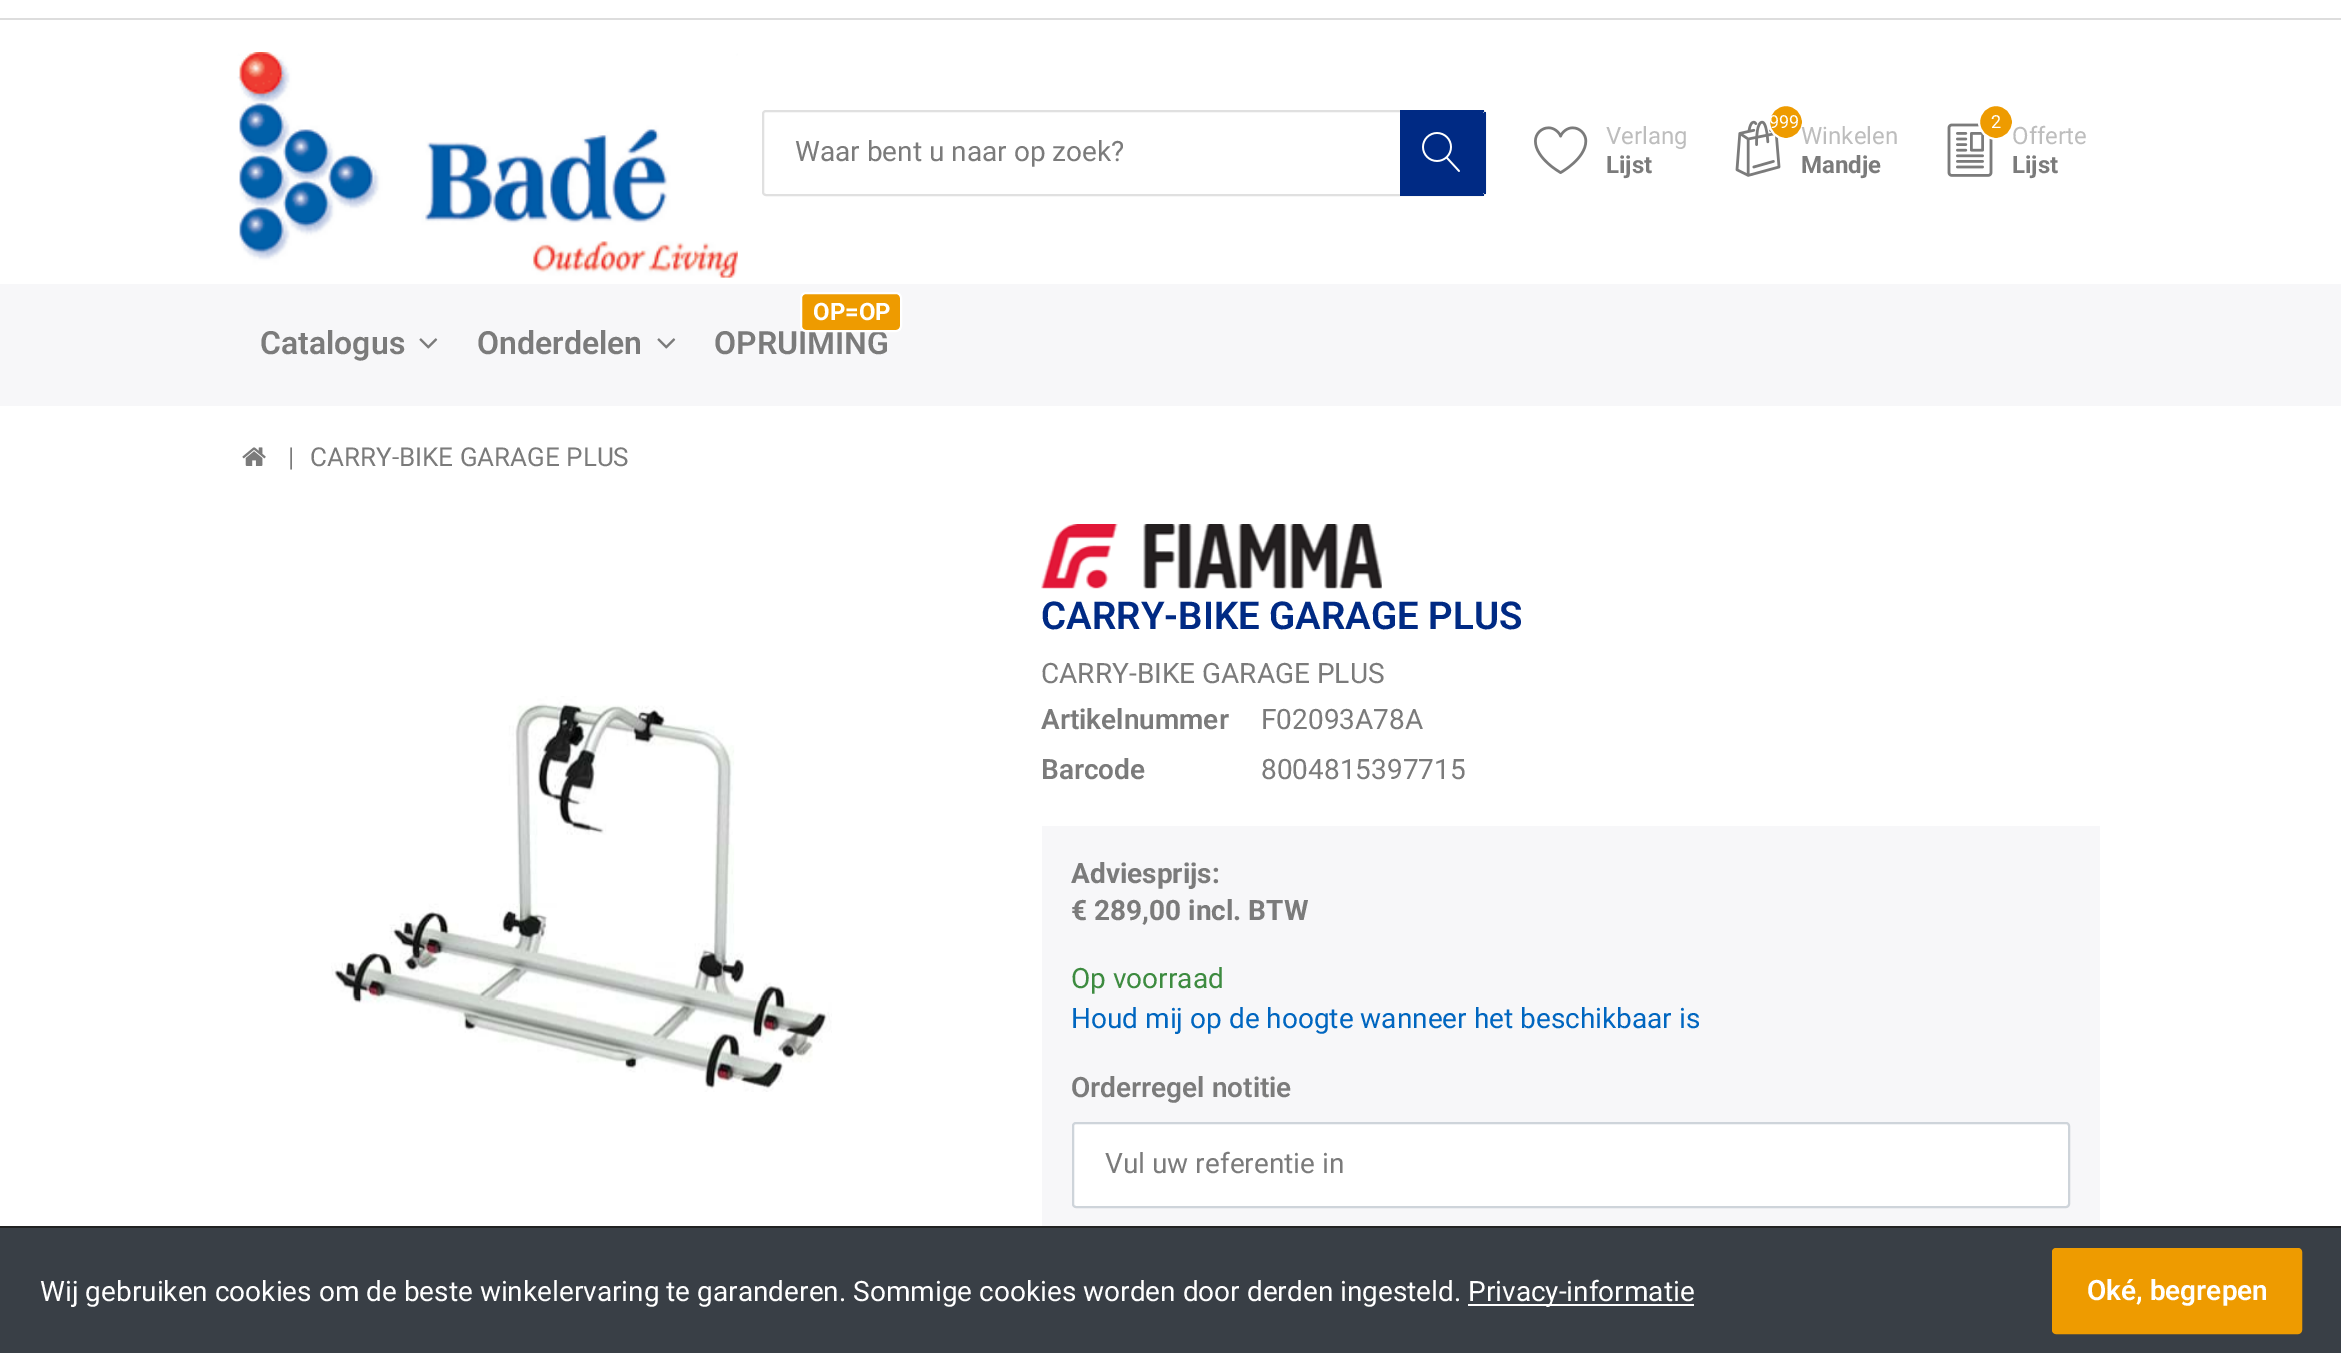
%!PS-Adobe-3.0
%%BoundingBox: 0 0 2341 1353
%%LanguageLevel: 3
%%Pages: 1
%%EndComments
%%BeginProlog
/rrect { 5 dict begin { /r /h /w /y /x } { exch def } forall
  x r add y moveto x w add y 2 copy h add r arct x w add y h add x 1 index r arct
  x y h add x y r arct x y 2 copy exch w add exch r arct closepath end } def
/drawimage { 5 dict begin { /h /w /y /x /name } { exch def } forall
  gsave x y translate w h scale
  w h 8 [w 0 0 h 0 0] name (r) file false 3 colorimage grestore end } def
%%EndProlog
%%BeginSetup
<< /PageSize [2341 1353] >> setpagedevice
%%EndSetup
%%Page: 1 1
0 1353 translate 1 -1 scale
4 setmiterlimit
1 setgray
0 0 2341 1353 rectfill
0.867 setgray
0 18 2341 2 rectfill
(images/1.raw) 237 52 501 226 drawimage
0.878 setgray
2 setlinewidth
763 111 722 84 3 rrect stroke
0 0.165 0.518 setrgbcolor
newpath 1400 112 moveto 1482 112 lineto 1483 112 1484 113 1484 114 curveto 1484 192 lineto 1484 193 1483 194 1482 194 curveto 1400 194 lineto closepath fill
1400 110 84 2 rectfill
1484 112 2 82 rectfill
1400 194 84 2 rectfill
(images/2.raw) 1422 132 38 40 drawimage
(images/3.raw) 1534 126 54 48 drawimage
(images/4.raw) 1735 120 46 57 drawimage
0.933 0.608 0 setrgbcolor
newpath 1786 122 17 0 360 arc closepath gsave fill grestore
1 setgray
stroke
(images/5.raw) 1947 123 46 54 drawimage
0.933 0.608 0 setrgbcolor
newpath 1996 122 17 0 360 arc closepath gsave fill grestore
1 setgray
stroke
0.969 0.969 0.976 setrgbcolor
0 284 2341 122 rectfill
(images/6.raw) 419 338 19 11 drawimage
(images/6.raw) 657 338 19 11 drawimage
(images/7.raw) 242 447 24 19 drawimage
(images/8.raw) 331 696 501 396 drawimage
(images/9.raw) 1041 524 341 65 drawimage
1042 826 1058 400 rectfill
1 setgray
1073 1123 996 84 3 rrect gsave fill grestore
0.808 0.831 0.855 setrgbcolor
stroke
0.224 0.247 0.275 setrgbcolor
0 1228 2341 125 rectfill
0.133 setgray
0 1226 2341 2 rectfill
1 setgray
1468 1304 226 2 rectfill
0.933 0.608 0 setrgbcolor
2053 1249 248 84 3 rrect gsave fill grestore
stroke
/Roboto-Regular [28 0 0 -28 0 0] selectfont
0.482 setgray
795 161 moveto (Waar bent u naar op zoek?) show
/Roboto-Regular [24 0 0 -24 0 0] selectfont
0.741 setgray
1606 144 moveto (Verlang) show
/Roboto-Bold [24 0 0 -24 0 0] selectfont
0.482 setgray
1606 173 moveto (Lijst) show
/Roboto-Regular [18 0 0 -18 0 0] selectfont
1 setgray
1769 128 moveto (999) show
/Roboto-Regular [24 0 0 -24 0 0] selectfont
0.741 setgray
1801 144 moveto (Winkelen) show
/Roboto-Bold [24 0 0 -24 0 0] selectfont
0.482 setgray
1801 173 moveto (Mandje) show
/Roboto-Regular [18 0 0 -18 0 0] selectfont
1 setgray
1991 128 moveto (2) show
/Roboto-Regular [24 0 0 -24 0 0] selectfont
0.741 setgray
2012 144 moveto (Offerte) show
/Roboto-Bold [24 0 0 -24 0 0] selectfont
0.482 setgray
2012 173 moveto (Lijst) show
/Roboto-SemiBold [32 0 0 -32 0 0] selectfont
260 354 moveto (Catalogus) show
477 354 moveto (Onderdelen) show
714 354 moveto (OPRUIMING) show
0.933 0.608 0 setrgbcolor
801 293 100 38 5 rrect gsave fill grestore
1 setgray
stroke
/Roboto-Bold [24 0 0 -24 0 0] selectfont
813 320 moveto (OP=OP) show
/Roboto-Regular [26 0 0 -26 0 0] selectfont
0.482 setgray
288 466 moveto (|) show
310 466 moveto (CARRY-BIKE GARAGE PLUS) show
/Roboto-SemiBold [38.4 0 0 -38.4 0 0] selectfont
0 0.165 0.518 setrgbcolor
1041 629 moveto (CARRY-BIKE GARAGE PLUS) show
/Roboto-Regular [28 0 0 -28 0 0] selectfont
0.482 setgray
1041 683 moveto (CARRY-BIKE GARAGE PLUS) show
/Roboto-SemiBold [28 0 0 -28 0 0] selectfont
1041 729 moveto (Artikelnummer) show
/Roboto-Regular [28 0 0 -28 0 0] selectfont
1261 729 moveto (F02093A78A) show
/Roboto-SemiBold [28 0 0 -28 0 0] selectfont
1041 779 moveto (Barcode) show
/Roboto-Regular [28 0 0 -28 0 0] selectfont
1261 779 moveto (8004815397715) show
/Roboto-Bold [28 0 0 -28 0 0] selectfont
1071 883 moveto (Adviesprijs:) show
1071 920 moveto (€ 289,00 incl. BTW) show
/Roboto-Regular [28 0 0 -28 0 0] selectfont
0.239 0.545 0.251 setrgbcolor
1071 988 moveto (Op voorraad) show
0 0.4 0.753 setrgbcolor
1071 1028 moveto (Houd mij op de hoogte wanneer het beschikbaar is) show
/Roboto-SemiBold [28 0 0 -28 0 0] selectfont
0.482 setgray
1071 1097 moveto (Orderregel notitie) show
/Roboto-Regular [28 0 0 -28 0 0] selectfont
1105 1173 moveto (Vul uw referentie in) show
1 setgray
40 1301 moveto (Wij gebruiken cookies om de beste winkelervaring te garanderen. Sommige cookies worden door derden ingesteld.) show
1468 1301 moveto (Privacy-informatie) show
/Roboto-SemiBold [28 0 0 -28 0 0] selectfont
2087 1300 moveto (Oké, begrepen) show
showpage
%%EOF
